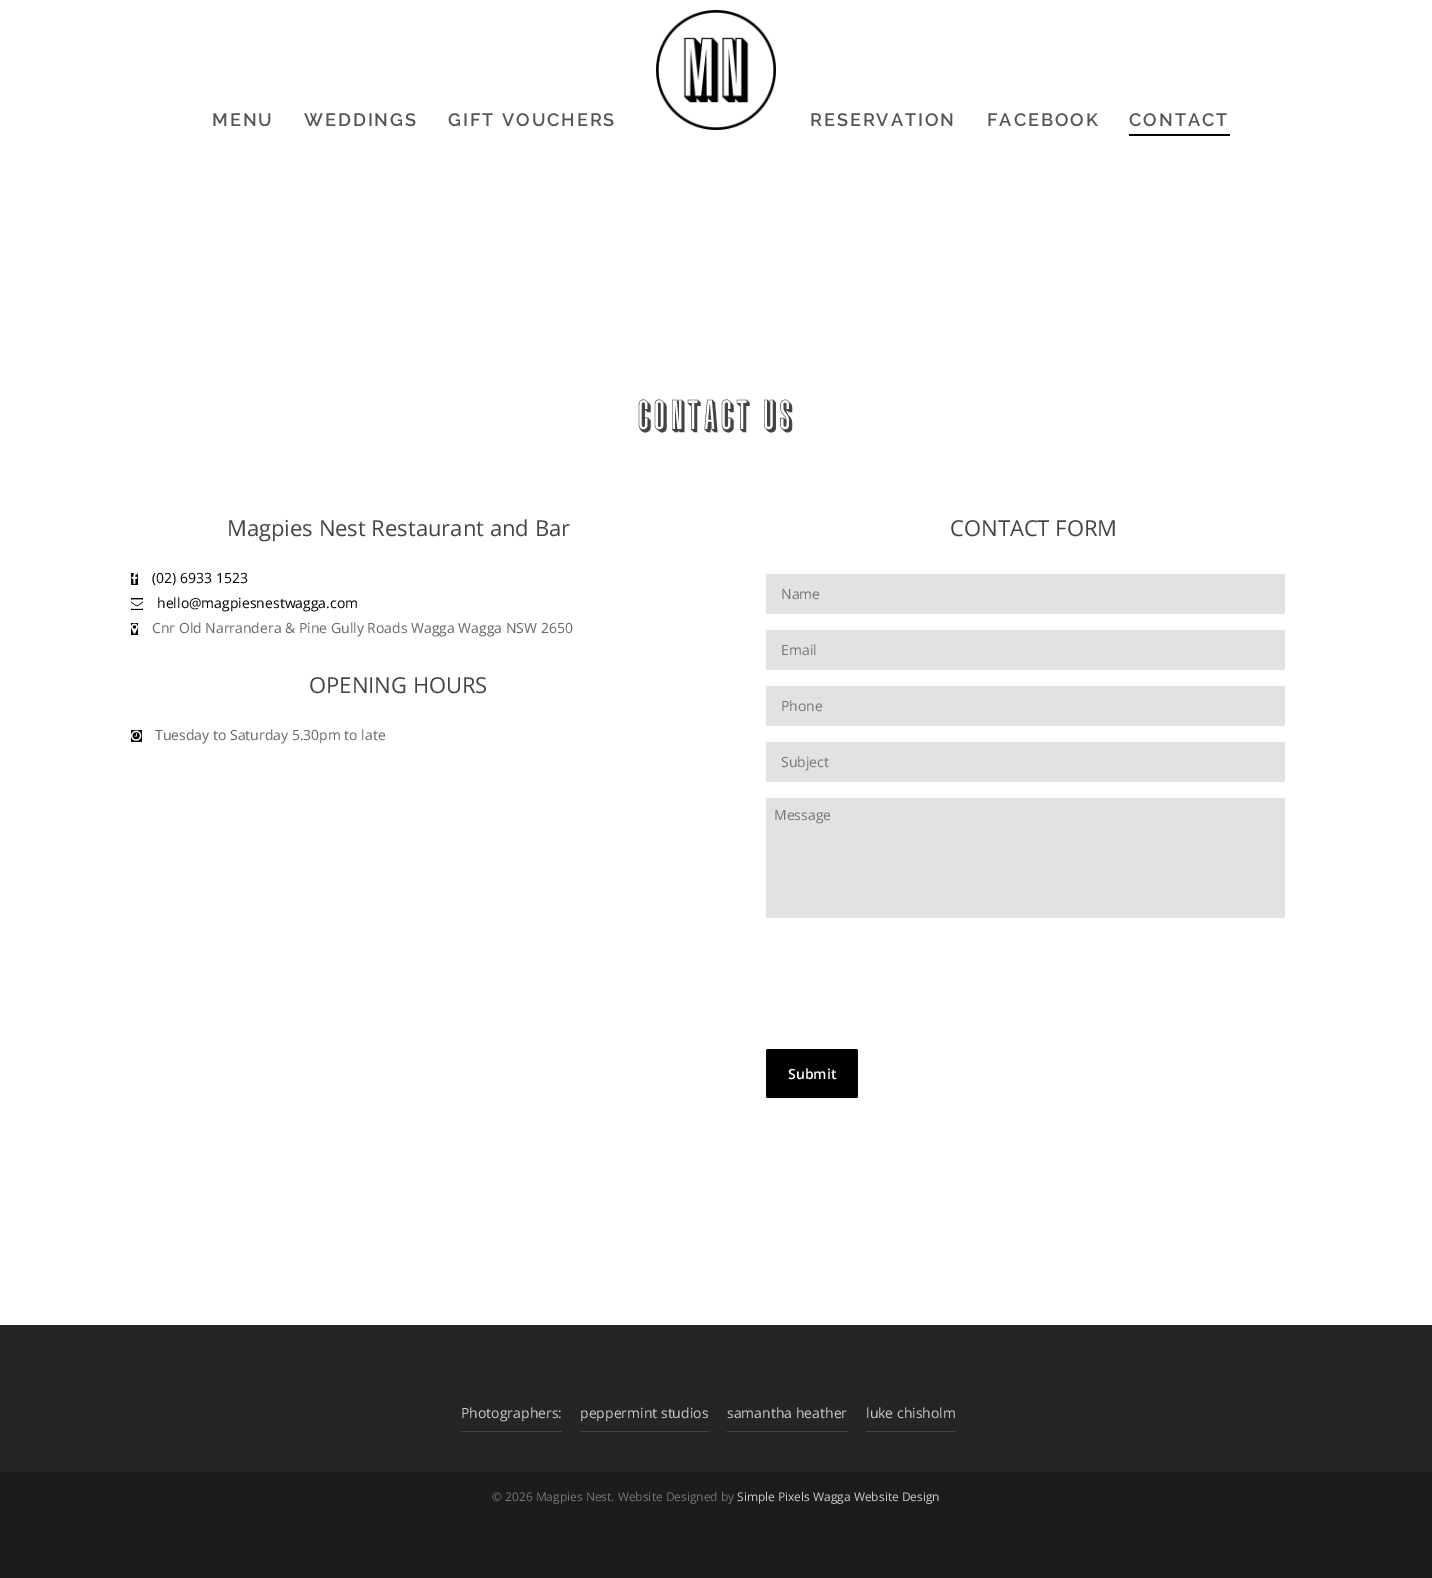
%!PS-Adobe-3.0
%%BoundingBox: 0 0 1432 1578
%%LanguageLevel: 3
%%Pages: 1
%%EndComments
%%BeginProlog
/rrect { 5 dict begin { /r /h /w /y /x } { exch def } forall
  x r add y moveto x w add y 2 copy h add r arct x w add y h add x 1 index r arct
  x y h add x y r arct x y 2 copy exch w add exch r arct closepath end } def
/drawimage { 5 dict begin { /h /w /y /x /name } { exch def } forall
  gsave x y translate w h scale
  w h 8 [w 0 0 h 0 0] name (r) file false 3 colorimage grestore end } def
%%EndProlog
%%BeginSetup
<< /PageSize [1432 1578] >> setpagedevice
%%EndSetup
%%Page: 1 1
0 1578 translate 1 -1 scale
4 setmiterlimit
1 setgray
0 0 1432 1578 rectfill
(images/1.raw) 656 10 120 120 drawimage
0 setgray
1129 134 101 2 rectfill
131 573 7 12 rectfill
(images/2.raw) 131 573 7 11 drawimage
131 598 12 12 rectfill
(images/3.raw) 131 599 12 10 drawimage
131 623 7 12 rectfill
(images/4.raw) 131 623 7 11 drawimage
131 730 11 12 rectfill
(images/5.raw) 131 730 11 11 drawimage
0.89 0.882 0.882 setrgbcolor
766 574 519 40 rectfill
766 630 519 40 rectfill
766 686 519 40 rectfill
766 742 519 40 rectfill
766 798 519 120 rectfill
0 setgray
766 1049 92 49 2 rrect fill
0.145 setgray
0 1325 1432 147 rectfill
0.267 setgray
461 1431 101 1 rectfill
580 1431 129 1 rectfill
727 1431 121 1 rectfill
866 1431 90 1 rectfill
0.11 setgray
0 1472 1432 106 rectfill
/Raleway-SemiBold [18 0 0 -18 0 0] selectfont
0.333 setgray
212 126 moveto 2 0 (MENU) ashow
304 126 moveto 2 0 (WEDDINGS) ashow
448 126 moveto 2 0 (GIFT VOUCHERS) ashow
810 126 moveto 2 0 (RESERVATION) ashow
987 126 moveto 2 0 (FACEBOOK) ashow
1129 126 moveto 2 0 (CONTACT) ashow
/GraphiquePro-Regular [39 0 0 -39 0 0] selectfont
0.267 setgray
637 429 moveto 1 0 (CONTACT US) ashow
/OpenSans-Regular [22 0 0 -22 0 0] selectfont
227 536 moveto (Magpies Nest Restaurant and Bar) show
/OpenSans-Regular [14 0 0 -14 0 0] selectfont
0 setgray
152 583 moveto (\(02\) 6933 1523) show
157 608 moveto (hello@magpiesnestwagga.com) show
0.404 setgray
152 633 moveto (Cnr Old Narrandera & Pine Gully Roads Wagga Wagga NSW 2650) show
/OpenSans-Regular [22 0 0 -22 0 0] selectfont
0.267 setgray
309 693 moveto (OPENING HOURS) show
/OpenSans-Regular [14 0 0 -14 0 0] selectfont
0.404 setgray
155 740 moveto (Tuesday to Saturday 5.30pm to late) show
/OpenSans-Regular [22 0 0 -22 0 0] selectfont
0.267 setgray
950 536 moveto (CONTACT FORM) show
/OpenSans-Regular [14 0 0 -14 0 0] selectfont
0.459 setgray
781 599 moveto (Name) show
781 655 moveto (Email) show
781 711 moveto (Phone) show
781 767 moveto (Subject) show
774 820 moveto (Message) show
/OpenSans-SemiBold [14 0 0 -14 0 0] selectfont
1 setgray
788 1079 moveto (Submit) show
/OpenSans-Regular [14 0 0 -14 0 0] selectfont
0.8 setgray
461 1418 moveto (Photographers:) show
580 1418 moveto (peppermint studios) show
727 1418 moveto (samantha heather) show
866 1418 moveto (luke chisholm) show
/OpenSans-Regular [12 0 0 -12 0 0] selectfont
0.459 setgray
492 1501 moveto (© 2026 Magpies Nest. Website Designed by) show
0.8 setgray
737 1501 moveto (Simple Pixels Wagga Website Design) show
showpage
%%EOF
